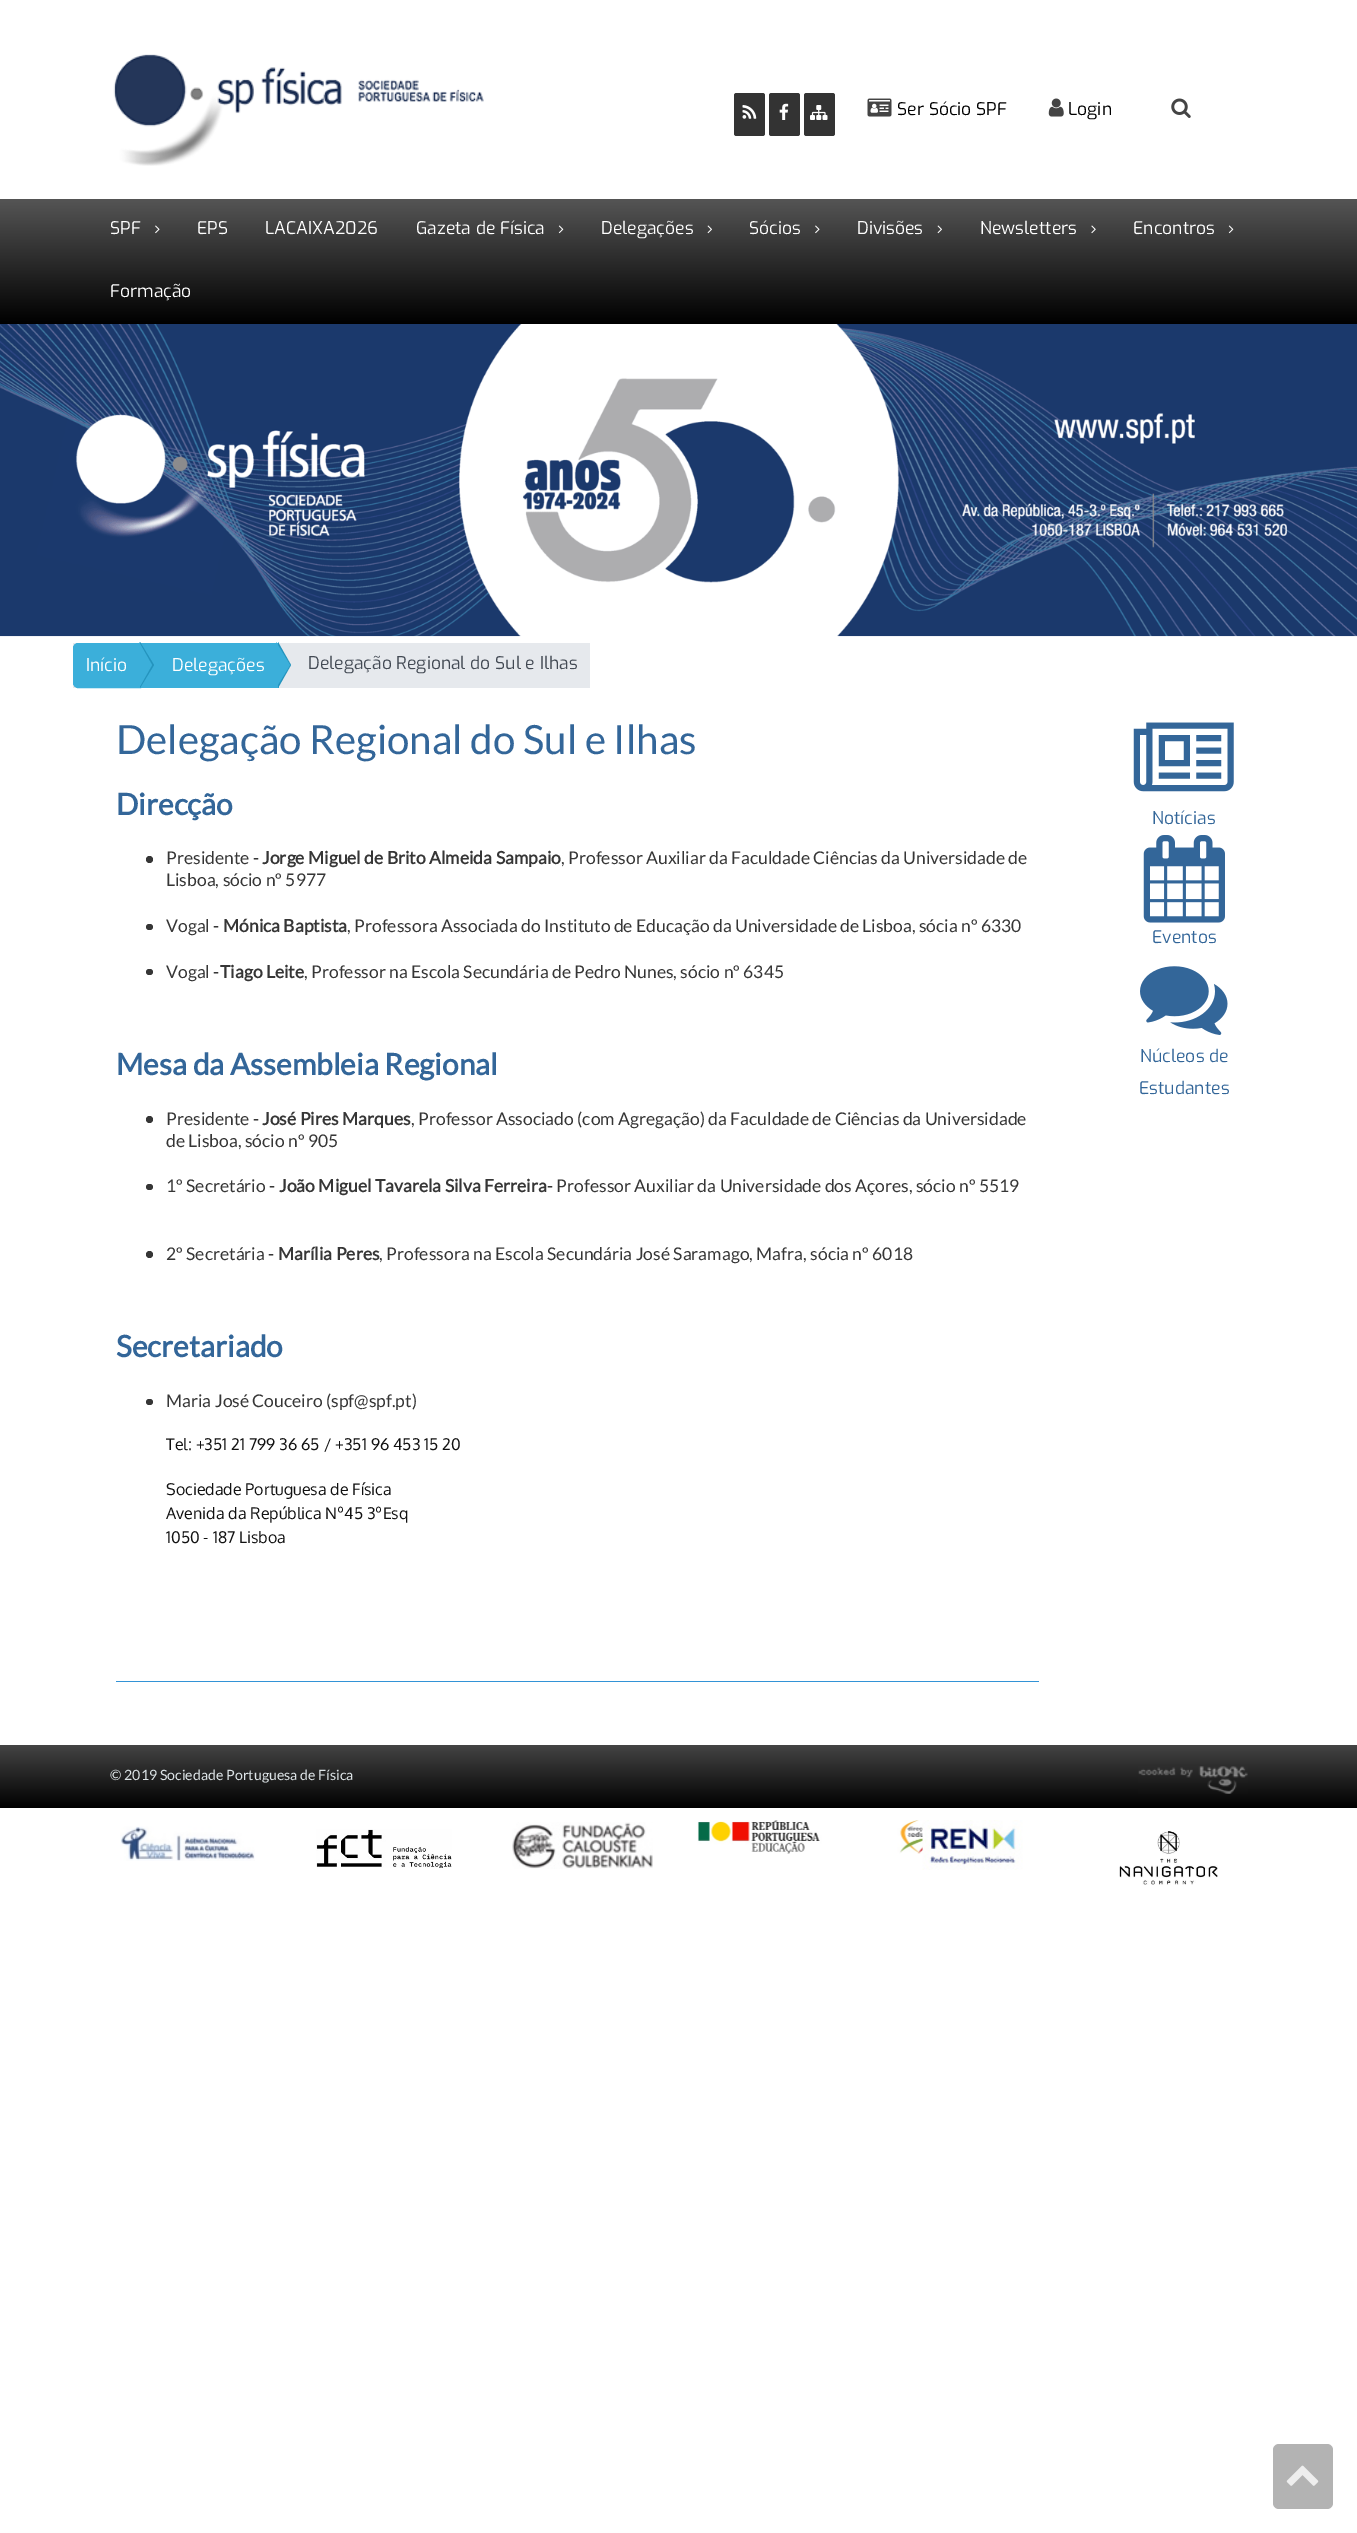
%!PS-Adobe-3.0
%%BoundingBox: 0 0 1357 2533
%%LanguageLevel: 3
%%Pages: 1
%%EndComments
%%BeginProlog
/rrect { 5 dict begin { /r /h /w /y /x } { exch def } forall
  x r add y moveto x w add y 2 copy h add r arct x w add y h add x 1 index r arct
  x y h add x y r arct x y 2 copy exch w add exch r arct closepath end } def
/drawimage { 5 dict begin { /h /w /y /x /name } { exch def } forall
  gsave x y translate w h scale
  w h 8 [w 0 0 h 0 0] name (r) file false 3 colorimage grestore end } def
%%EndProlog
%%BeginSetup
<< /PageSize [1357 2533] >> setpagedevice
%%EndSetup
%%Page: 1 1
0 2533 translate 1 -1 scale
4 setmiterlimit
1 setgray
0 0 1357 2533 rectfill
(images/1.raw) 113 54 371 112 drawimage
0.2 setgray
734 93 31 43 2.5 rrect fill
(images/2.raw) 742 105 15 14 drawimage
769 93 31 43 2.5 rrect fill
(images/3.raw) 779 103 10 17 drawimage
804 93 31 43 2.5 rrect fill
(images/4.raw) 810 105 18 15 drawimage
(images/5.raw) 867 98 25 19 drawimage
(images/6.raw) 1048 98 16 19 drawimage
(images/7.raw) 1171 98 20 20 drawimage
gsave newpath 0 199 moveto 1357 199 lineto 1357 324 lineto 0 324 lineto closepath clip newpath
<< /ShadingType 2 /ColorSpace /DeviceRGB /Coords [679 199 679 324] /Extend [true true] /Function << /FunctionType 2 /Domain [0 1] /C0 [0.333 0.333 0.333] /C1 [0 0 0] /N 1 >> >> shfill grestore
(images/8.raw) 155 225 5 9 drawimage
(images/9.raw) 558 225 6 9 drawimage
(images/10.raw) 707 225 5 9 drawimage
(images/8.raw) 815 225 5 9 drawimage
(images/10.raw) 937 225 5 9 drawimage
(images/11.raw) 1091 225 5 9 drawimage
(images/9.raw) 1228 225 6 9 drawimage
(images/12.raw) 0 324 1357 313 drawimage
0.902 0.914 0.929 setrgbcolor
73 643 517 45 rectfill
0.231 0.686 0.855 setrgbcolor
newpath 78 643.5 moveto 140.5 643.5 lineto 140.5 687.5 lineto 78 687.5 lineto 75.5 687.5 73.5 685.5 73.5 683 curveto 73.5 648 lineto 73.5 645.5 75.5 643.5 78 643.5 curveto closepath gsave fill grestore
stroke
141 643 138 45 rectfill
0.141 0.58 0.745 setrgbcolor
newpath 140 688 moveto 140 642 lineto 154 665 lineto closepath fill
0.231 0.686 0.855 setrgbcolor
newpath 139 688 moveto 139 642 lineto 152 665 lineto closepath fill
0.141 0.58 0.745 setrgbcolor
newpath 278 688 moveto 278 642 lineto 291 665 lineto closepath fill
0.231 0.686 0.855 setrgbcolor
newpath 276 688 moveto 276 642 lineto 290 665 lineto closepath fill
0.212 setgray
newpath 149.5 859.5 3.5 0 360 arc closepath fill
146 924 7 6 3 rrect fill
146 969 7 6 3 rrect fill
newpath 149.5 1119.5 3.5 0 360 arc closepath fill
146 1184 7 6 3 rrect fill
newpath 149.5 1254.5 3.5 0 360 arc closepath fill
146 1399 7 6 3 rrect fill
0.2 0.576 0.839 setrgbcolor
116 1681 923 1 rectfill
(images/13.raw) 1133 722 101 70 drawimage
(images/14.raw) 1143 835 82 88 drawimage
(images/15.raw) 1140 966 88 69 drawimage
gsave newpath 0 1745 moveto 1357 1745 lineto 1357 1808 lineto 0 1808 lineto closepath clip newpath
<< /ShadingType 2 /ColorSpace /DeviceRGB /Coords [679 1745 679 1808] /Extend [true true] /Function << /FunctionType 2 /Domain [0 1] /C0 [0.267 0.267 0.267] /C1 [0 0 0] /N 1 >> >> shfill grestore
(images/16.raw) 1138 1766 110 28 drawimage
(images/17.raw) 120 1826 135 35 drawimage
(images/18.raw) 316 1829 136 39 drawimage
(images/19.raw) 512 1822 141 47 drawimage
(images/20.raw) 697 1820 226 34 drawimage
(images/21.raw) 922 1820 101 50 drawimage
(images/22.raw) 1119 1831 99 54 drawimage
0.702 setgray
1273 2444 60 65 6 rrect fill
(images/23.raw) 1286 2465 33 21 drawimage
/Exo-Regular [17.5 0 0 -17.5 0 0] selectfont
0 setgray
897 115 moveto (Ser Sócio SPF) show
1068 115 moveto (Login) show
1 setgray
110 234 moveto (SPF) show
197 234 moveto (EPS) show
265 234 moveto (LACAIXA2026) show
416 234 moveto (Gazeta de Física) show
601 234 moveto (Delegações) show
749 234 moveto (Sócios) show
857 234 moveto (Divisões) show
980 234 moveto (Newsletters) show
1133 234 moveto (Encontros) show
110 297 moveto (Formação) show
86 671 moveto (Início) show
172 671 moveto (Delegações) show
0.263 0.29 0.329 setrgbcolor
308 669 moveto (Delegação Regional do Sul e Ilhas) show
/Lato-Regular [40.25 0 0 -40.25 0 0] selectfont
0.2 0.4 0.6 setrgbcolor
116 754 moveto (Delegação Regional do Sul e Ilhas) show
/Lato-Bold [29.75 0 0 -29.75 0 0] selectfont
116 815 moveto (Direcção) show
/Lato-Regular [17.5 0 0 -17.5 0 0] selectfont
0.212 setgray
166 864 moveto (Presidente -) show
/Lato-Bold [17.5 0 0 -17.5 0 0] selectfont
262 864 moveto (Jorge Miguel de Brito Almeida Sampaio) show
/Lato-Regular [17.5 0 0 -17.5 0 0] selectfont
561 864 moveto (, Professor Auxiliar da Faculdade Ciências da Universidade de) show
166 886 moveto (Lisboa, sócio nº 5977) show
166 932 moveto (Vogal -) show
/Lato-Bold [17.5 0 0 -17.5 0 0] selectfont
223 932 moveto (Mónica Baptista) show
/Lato-Regular [17.5 0 0 -17.5 0 0] selectfont
347 932 moveto (, Professora Associada do Instituto de Educação da Universidade de Lisboa, sócia nº 6330) show
166 978 moveto (Vogal -) show
/Lato-Bold [17.5 0 0 -17.5 0 0] selectfont
220 978 moveto (Tiago Leite) show
/Lato-Regular [17.5 0 0 -17.5 0 0] selectfont
304 978 moveto (, Professor na Escola Secundária de Pedro Nunes, sócio nº 6345) show
/Lato-Bold [29.75 0 0 -29.75 0 0] selectfont
0.2 0.4 0.6 setrgbcolor
116 1075 moveto (Mesa da Assembleia Regional) show
/Lato-Regular [17.5 0 0 -17.5 0 0] selectfont
0.212 setgray
166 1125 moveto (Presidente -) show
/Lato-Bold [17.5 0 0 -17.5 0 0] selectfont
262 1125 moveto (José Pires Marques) show
/Lato-Regular [17.5 0 0 -17.5 0 0] selectfont
411 1125 moveto (, Professor Associado \(com Agregação\) da Faculdade de Ciências da Universidade) show
166 1147 moveto (de Lisboa, sócio nº 905) show
166 1192 moveto (1º Secretário -) show
/Lato-Bold [17.5 0 0 -17.5 0 0] selectfont
279 1192 moveto (João Miguel Tavarela Silva Ferreira) show
/Lato-Regular [17.5 0 0 -17.5 0 0] selectfont
547 1192 moveto (- Professor Auxiliar da Universidade dos Açores, sócio nº 5519) show
166 1260 moveto (2º Secretária -) show
/Lato-Bold [17.5 0 0 -17.5 0 0] selectfont
278 1260 moveto (Marília Peres) show
/Lato-Regular [17.5 0 0 -17.5 0 0] selectfont
379 1260 moveto (, Professora na Escola Secundária José Saramago, Mafra, sócia nº 6018) show
/Lato-Bold [29.75 0 0 -29.75 0 0] selectfont
0.2 0.4 0.6 setrgbcolor
116 1357 moveto (Secretariado) show
/Lato-Regular [17.5 0 0 -17.5 0 0] selectfont
0.212 setgray
166 1407 moveto (Maria José Couceiro \(spf@spf.pt\)) show
/Oxygen-Regular [16 0 0 -16 0 0] selectfont
0.067 setgray
166 1450 moveto (Tel: +351 21 799 36 65 / +351 96 453 15 20) show
166 1495 moveto (Sociedade Portuguesa de Física) show
166 1519 moveto (Avenida da República Nº45 3ºEsq) show
166 1543 moveto (1050 - 187 Lisboa) show
/Exo-Regular [17.5 0 0 -17.5 0 0] selectfont
0.2 0.4 0.6 setrgbcolor
1152 824 moveto (Notícias) show
1152 943 moveto (Eventos) show
1140 1062 moveto (Núcleos de) show
1139 1094 moveto (Estudantes) show
/Lato-Regular [14.2 0 0 -14.2 0 0] selectfont
0.867 0.894 0.906 setrgbcolor
110 1780 moveto (© 2019 Sociedade Portuguesa de Física) show
showpage
%%EOF
